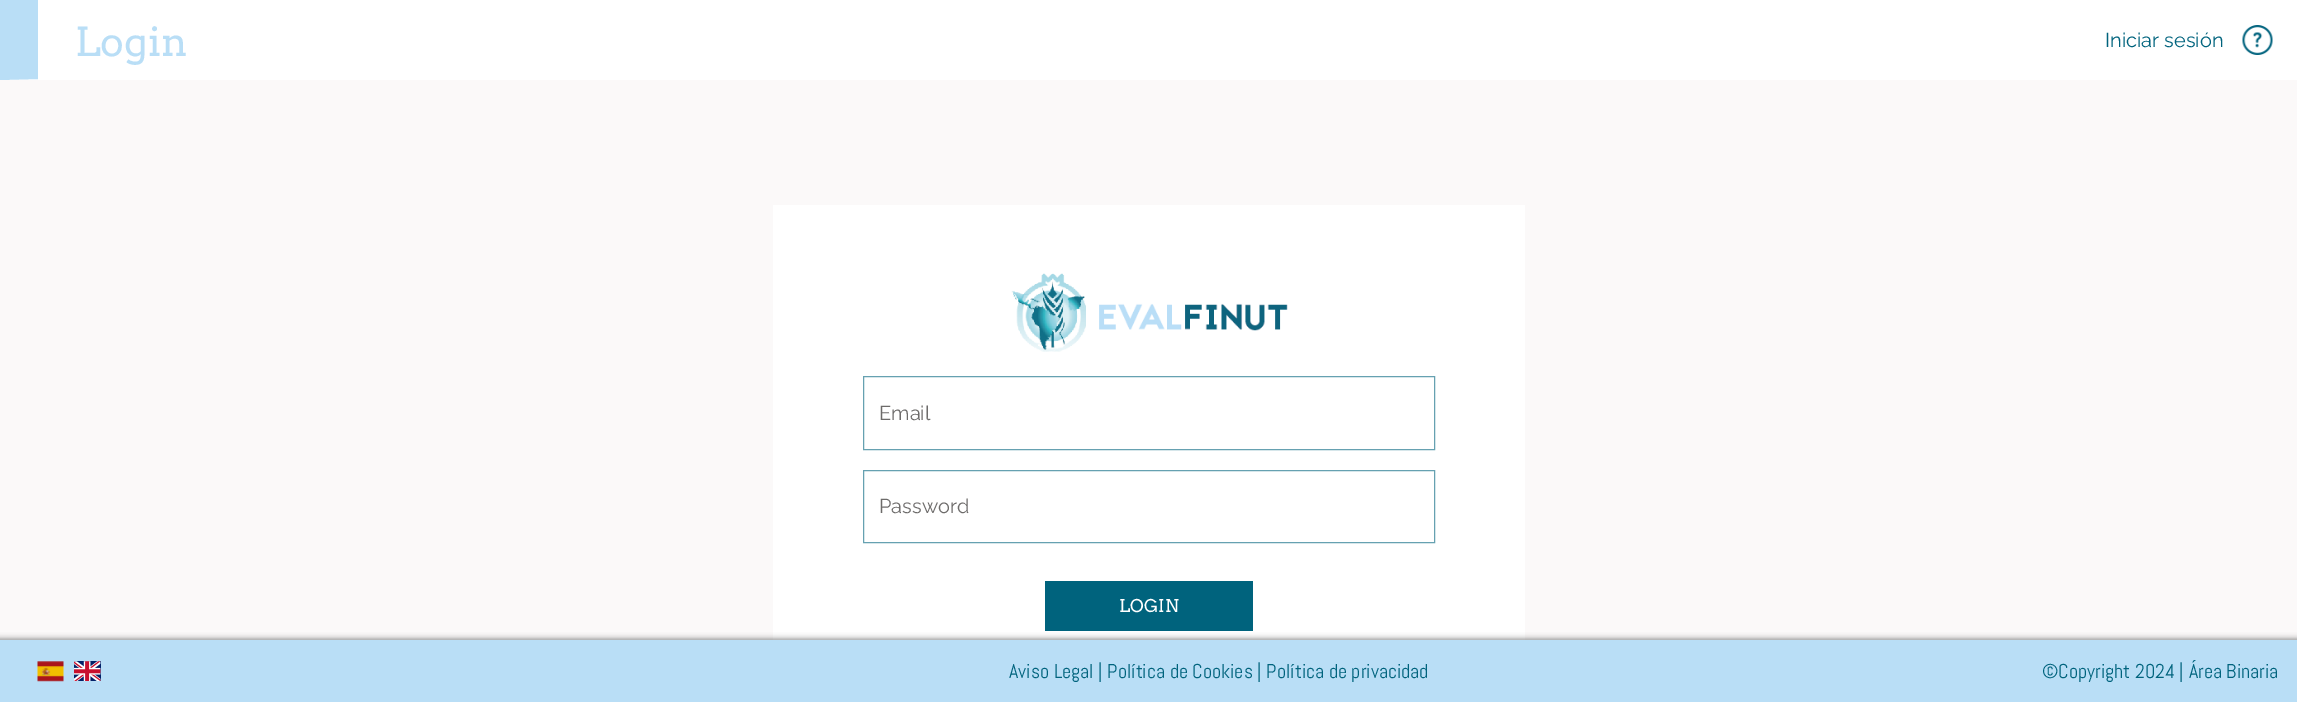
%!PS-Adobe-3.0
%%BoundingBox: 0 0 2297 702
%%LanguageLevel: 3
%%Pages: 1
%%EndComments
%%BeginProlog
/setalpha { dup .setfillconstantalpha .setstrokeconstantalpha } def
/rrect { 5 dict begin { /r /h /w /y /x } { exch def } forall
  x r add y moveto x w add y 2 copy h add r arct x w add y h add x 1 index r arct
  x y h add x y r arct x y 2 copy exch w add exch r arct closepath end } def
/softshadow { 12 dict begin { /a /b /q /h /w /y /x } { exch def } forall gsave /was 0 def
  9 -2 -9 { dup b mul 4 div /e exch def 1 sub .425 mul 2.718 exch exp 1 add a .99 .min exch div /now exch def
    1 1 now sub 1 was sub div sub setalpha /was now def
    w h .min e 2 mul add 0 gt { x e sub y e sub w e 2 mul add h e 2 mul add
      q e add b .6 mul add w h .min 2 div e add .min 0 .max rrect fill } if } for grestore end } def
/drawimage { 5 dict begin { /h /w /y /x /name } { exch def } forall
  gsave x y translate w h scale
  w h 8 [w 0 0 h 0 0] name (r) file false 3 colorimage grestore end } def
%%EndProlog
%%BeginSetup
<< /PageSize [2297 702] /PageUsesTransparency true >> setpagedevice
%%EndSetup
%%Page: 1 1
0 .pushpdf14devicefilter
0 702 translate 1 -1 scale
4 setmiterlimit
0.984 0.976 0.976 setrgbcolor
0 0 2297 702 rectfill
1 setgray
1 0 2296 80 rectfill
0.725 0.871 0.965 setrgbcolor
newpath 0 80 moveto 0 0 lineto 38 0 lineto 38 79 lineto closepath fill
(images/1.raw) 2242 25 31 30 drawimage
1 setgray
773 205 752 435 rectfill
(images/2.raw) 1011 273 277 79 drawimage
0.4 0.631 0.694 setrgbcolor
863.5 376.5 571 73 rectstroke
863.5 470.5 571 72 rectstroke
0 0.388 0.49 setrgbcolor
1045 581 208 50 rectfill
0.502 setgray
-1 639 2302 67 0 3 1 softshadow
0.725 0.871 0.965 setrgbcolor
0 640 2297 62 rectfill
(images/3.raw) 37 661 27 21 drawimage
(images/4.raw) 74 661 27 20 drawimage
/Arvo-Regular [40 0 0 -40 0 0] selectfont
75 56 moveto (Login) show
/Raleway-Regular [20 0 0 -20 0 0] selectfont
0 0.388 0.49 setrgbcolor
2105 47 moveto (Iniciar sesión) show
0.427 0.42 0.416 setrgbcolor
879 420 moveto (Email) show
879 513 moveto (Password) show
/Arvo-Regular [17.5 0 0 -17.5 0 0] selectfont
1 setgray
1119 612 moveto (LOGIN) show
/Abel-Regular [20 0 0 -20 0 0] selectfont
0 0.388 0.49 setrgbcolor
1009 678 moveto (Aviso Legal | Política de Cookies | Política de privacidad) show
2042 678 moveto (©Copyright 2024 | Área Binaria) show
.poppdf14devicefilter showpage
%%EOF
